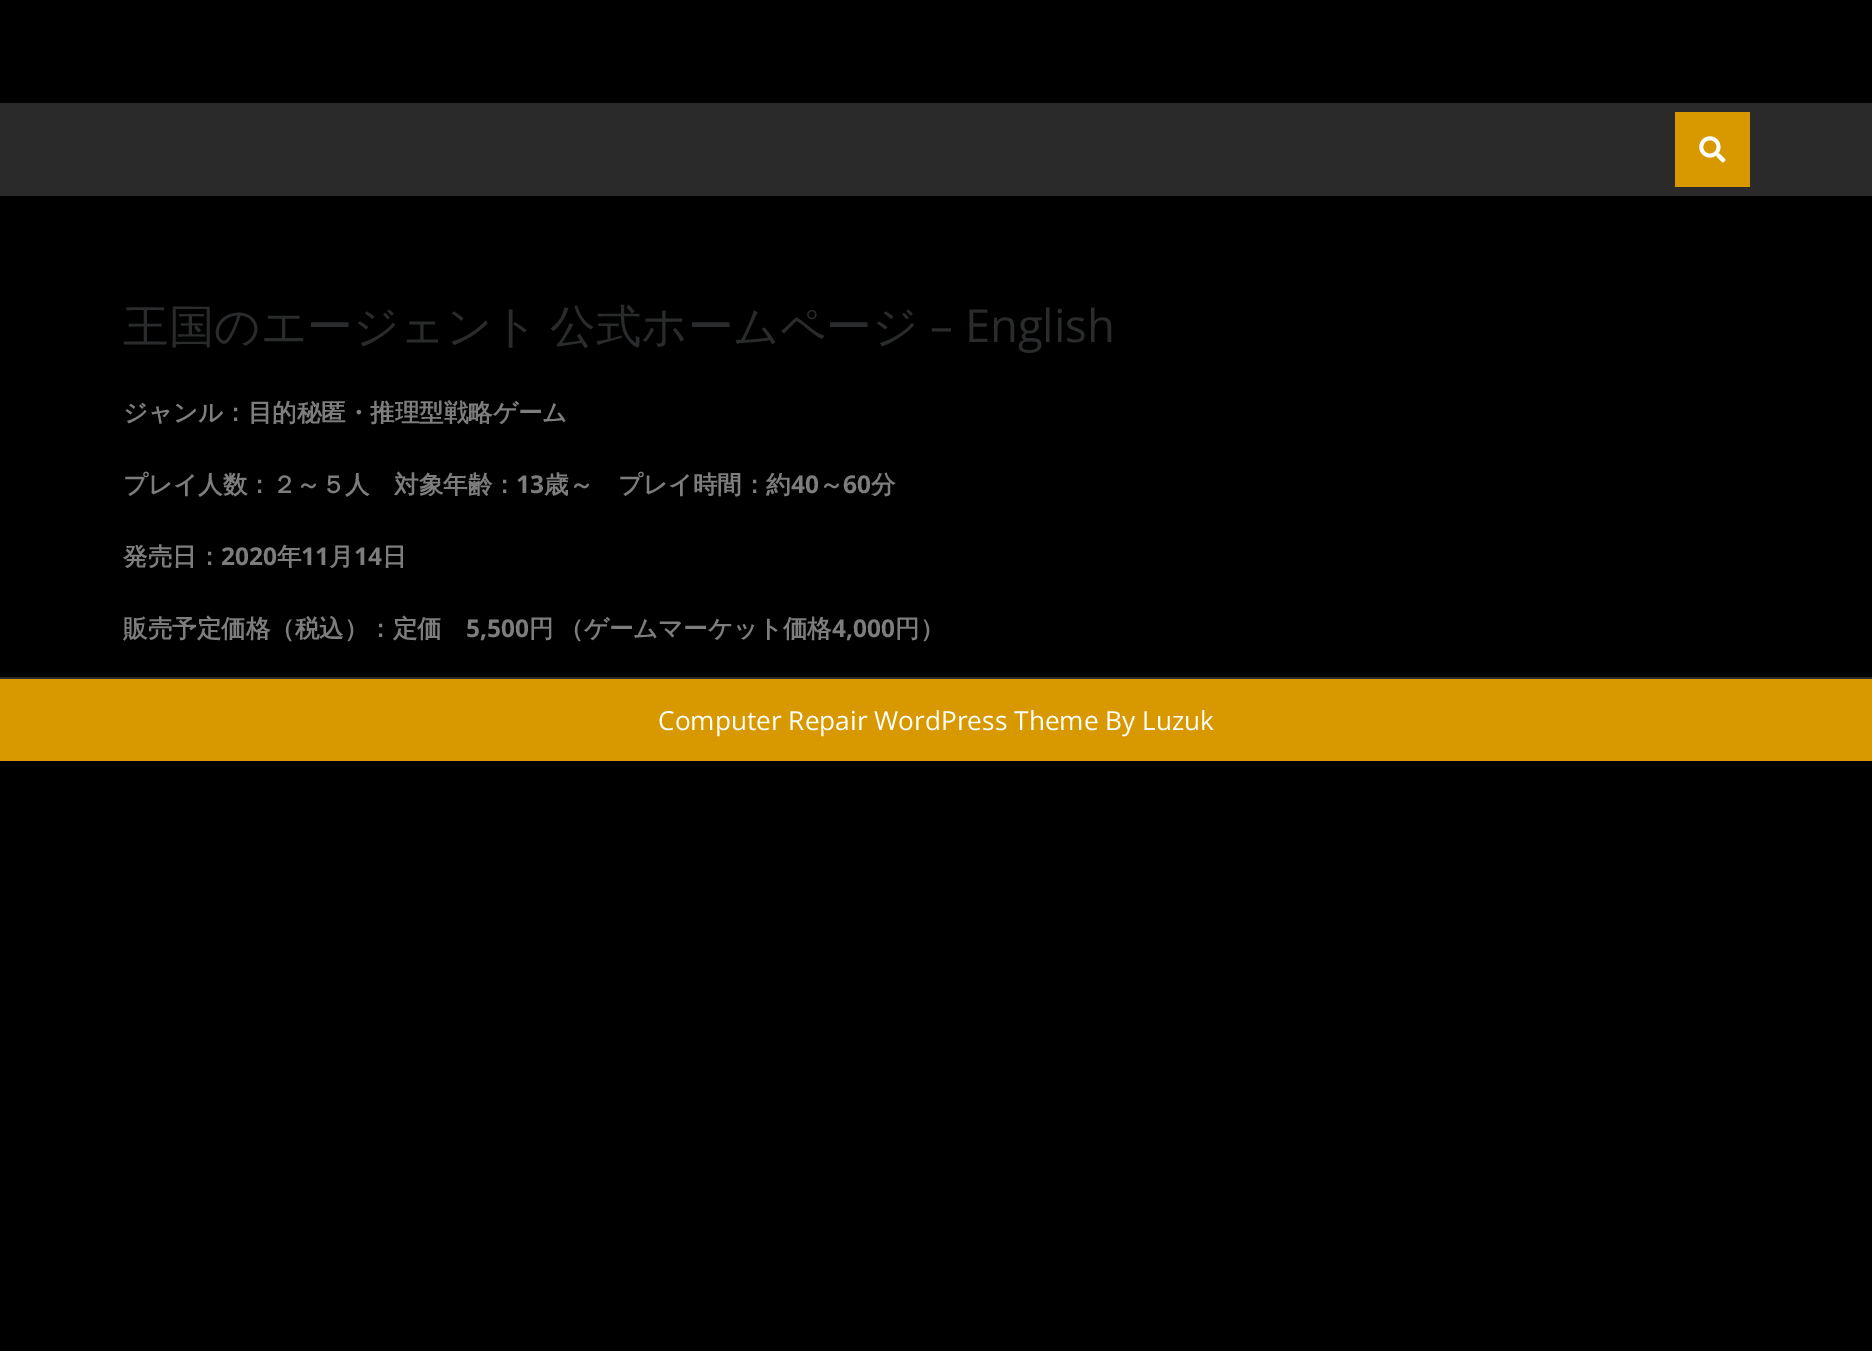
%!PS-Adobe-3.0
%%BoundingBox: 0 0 1872 1351
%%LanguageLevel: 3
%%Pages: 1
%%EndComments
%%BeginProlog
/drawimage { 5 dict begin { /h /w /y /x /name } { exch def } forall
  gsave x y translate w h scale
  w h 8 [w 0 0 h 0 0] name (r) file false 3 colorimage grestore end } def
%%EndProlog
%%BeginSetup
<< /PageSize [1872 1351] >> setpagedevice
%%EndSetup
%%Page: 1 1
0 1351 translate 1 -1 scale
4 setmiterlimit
0 setgray
0 0 1872 1351 rectfill
0.165 setgray
0 103 1872 93 rectfill
0.843 0.596 0 setrgbcolor
1675 112 75 75 rectfill
(images/1.raw) 1699 136 27 27 drawimage
0.165 setgray
0 677 1872 2 rectfill
0.843 0.596 0 setrgbcolor
0 679 1872 82 rectfill
/WenQuanYiZenHei-Medium [45.5 0 0 -45.5 0 0] selectfont
0.161 0.169 0.173 setrgbcolor
123 342 moveto (王国のエージェント) show
550 342 moveto (公式ホームページ) show
/OpenSans-Regular [45.5 0 0 -45.5 0 0] selectfont
930 342 moveto (– English) show
/WenQuanYiZenHei-Bold [24.5 0 0 -24.5 0 0] selectfont
0.49 setgray
123 421 moveto (ジャンル：目的秘匿・推理型戦略ゲーム) show
123 493 moveto (プレイ人数：２～５人　対象年齢：) show
/OpenSans-Bold [24.5 0 0 -24.5 0 0] selectfont
516 493 moveto (13) show
/WenQuanYiZenHei-Bold [24.5 0 0 -24.5 0 0] selectfont
544 493 moveto (歳～　プレイ時間：約) show
/OpenSans-Bold [24.5 0 0 -24.5 0 0] selectfont
791 493 moveto (40) show
/WenQuanYiZenHei-Bold [24.5 0 0 -24.5 0 0] selectfont
819 493 moveto (～) show
/OpenSans-Bold [24.5 0 0 -24.5 0 0] selectfont
843 493 moveto (60) show
/WenQuanYiZenHei-Bold [24.5 0 0 -24.5 0 0] selectfont
871 493 moveto (分) show
123 565 moveto (発売日：) show
/OpenSans-Bold [24.5 0 0 -24.5 0 0] selectfont
221 565 moveto (2020) show
/WenQuanYiZenHei-Bold [24.5 0 0 -24.5 0 0] selectfont
277 565 moveto (年) show
/OpenSans-Bold [24.5 0 0 -24.5 0 0] selectfont
301 565 moveto (11) show
/WenQuanYiZenHei-Bold [24.5 0 0 -24.5 0 0] selectfont
329 565 moveto (月) show
/OpenSans-Bold [24.5 0 0 -24.5 0 0] selectfont
354 565 moveto (14) show
/WenQuanYiZenHei-Bold [24.5 0 0 -24.5 0 0] selectfont
382 565 moveto (日) show
123 637 moveto (販売予定価格（税込）：定価) show
/OpenSans-Bold [24.5 0 0 -24.5 0 0] selectfont
466 637 moveto (5,500) show
/WenQuanYiZenHei-Bold [24.5 0 0 -24.5 0 0] selectfont
529 637 moveto (円) show
559 637 moveto (（ゲームマーケット価格) show
/OpenSans-Bold [24.5 0 0 -24.5 0 0] selectfont
832 637 moveto (4,000) show
/WenQuanYiZenHei-Bold [24.5 0 0 -24.5 0 0] selectfont
895 637 moveto (円）) show
/OpenSans-Regular [26.25 0 0 -26.25 0 0] selectfont
1 setgray
658 730 moveto (Computer Repair WordPress Theme By Luzuk) show
showpage
%%EOF
